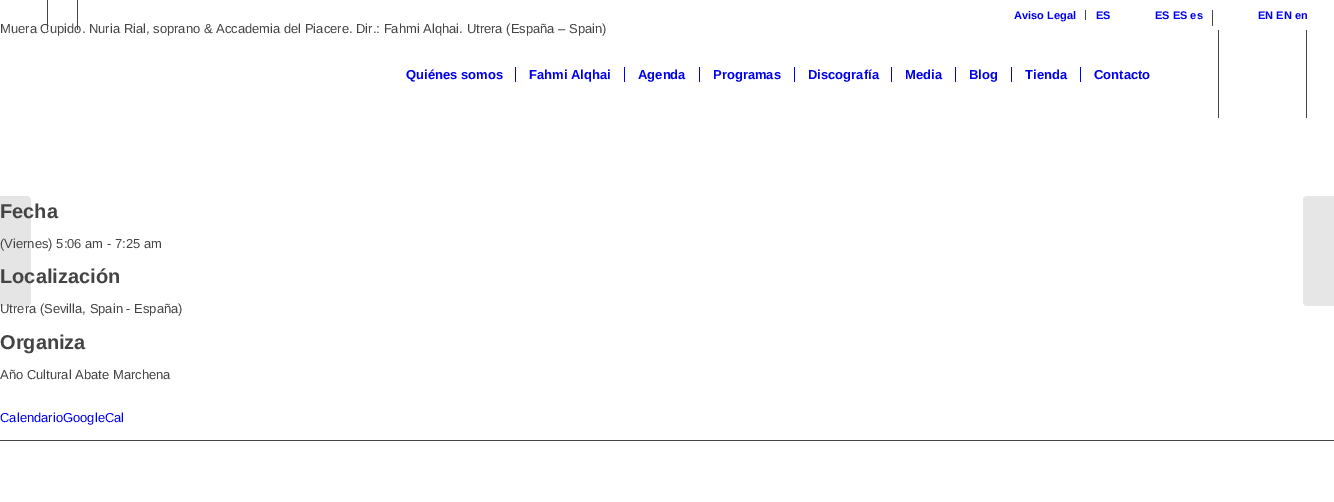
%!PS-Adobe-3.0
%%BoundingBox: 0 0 1334 502
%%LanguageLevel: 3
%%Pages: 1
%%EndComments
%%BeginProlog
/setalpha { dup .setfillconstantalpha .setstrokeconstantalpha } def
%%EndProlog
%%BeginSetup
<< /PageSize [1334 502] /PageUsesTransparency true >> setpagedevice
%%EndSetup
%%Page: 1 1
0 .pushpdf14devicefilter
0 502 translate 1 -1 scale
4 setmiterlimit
1 setgray
0 0 1334 502 rectfill
0.267 setgray
0 440 1334 1 rectfill
47 0 1 30 rectfill
77 0 1 30 rectfill
1085 10 1 10 rectfill
1212 10 1 16 rectfill
0 0 0.933 setrgbcolor
515 67 1 15 rectfill
624 67 1 15 rectfill
699 67 1 15 rectfill
794 67 1 15 rectfill
891 67 1 15 rectfill
955 67 1 15 rectfill
1011 67 1 15 rectfill
1080 67 1 15 rectfill
0.267 setgray
1306 30 1 88 rectfill
1218 30 1 88 rectfill
0.1 setalpha
0 setgray
newpath 0 196 moveto 27 196 lineto 29 196 31 198 31 200 curveto 31 302 lineto 31 304 29 306 27 306 curveto 0 306 lineto closepath fill
1 setalpha
0.902 setgray
newpath 1307 196 moveto 1334 196 lineto 1334 306 lineto 1307 306 lineto 1305 306 1303 304 1303 302 curveto 1303 200 lineto 1303 198 1305 196 1307 196 curveto closepath fill
/LiberationSans-Regular [13 0 0 -13 0 0] selectfont
0.267 setgray
0 33 moveto (Muera Cupido. Nuria Rial, soprano & Accademia del Piacere. Dir.: Fahmi Alqhai. Utrera \(España – Spain\)) show
/LiberationSans-Bold [20 0 0 -20 0 0] selectfont
0 218 moveto (Fecha) show
/LiberationSans-Regular [13 0 0 -13 0 0] selectfont
0 248 moveto (\(Viernes\) 5:06 am - 7:25 am) show
/LiberationSans-Bold [20 0 0 -20 0 0] selectfont
0 283 moveto (Localización) show
/LiberationSans-Regular [13 0 0 -13 0 0] selectfont
0 313 moveto (Utrera \(Sevilla, Spain - España\)) show
/LiberationSans-Bold [20 0 0 -20 0 0] selectfont
0 349 moveto (Organiza) show
/LiberationSans-Regular [13 0 0 -13 0 0] selectfont
0 379 moveto (Año Cultural Abate Marchena) show
0 0 0.933 setrgbcolor
0 422 moveto (CalendarioGoogleCal) show
/LiberationSans-Bold [11 0 0 -11 0 0] selectfont
1014 19 moveto (Aviso Legal) show
1096 19 moveto (ES) show
1155 19 moveto (ES ES es) show
1258 19 moveto (EN EN en) show
/LiberationSans-Bold [13 0 0 -13 0 0] selectfont
406 79 moveto (Quiénes somos) show
529 79 moveto (Fahmi Alqhai) show
638 79 moveto (Agenda) show
713 79 moveto (Programas) show
808 79 moveto (Discografía) show
905 79 moveto (Media) show
969 79 moveto (Blog) show
1025 79 moveto (Tienda) show
1094 79 moveto (Contacto) show
.poppdf14devicefilter showpage
%%EOF
